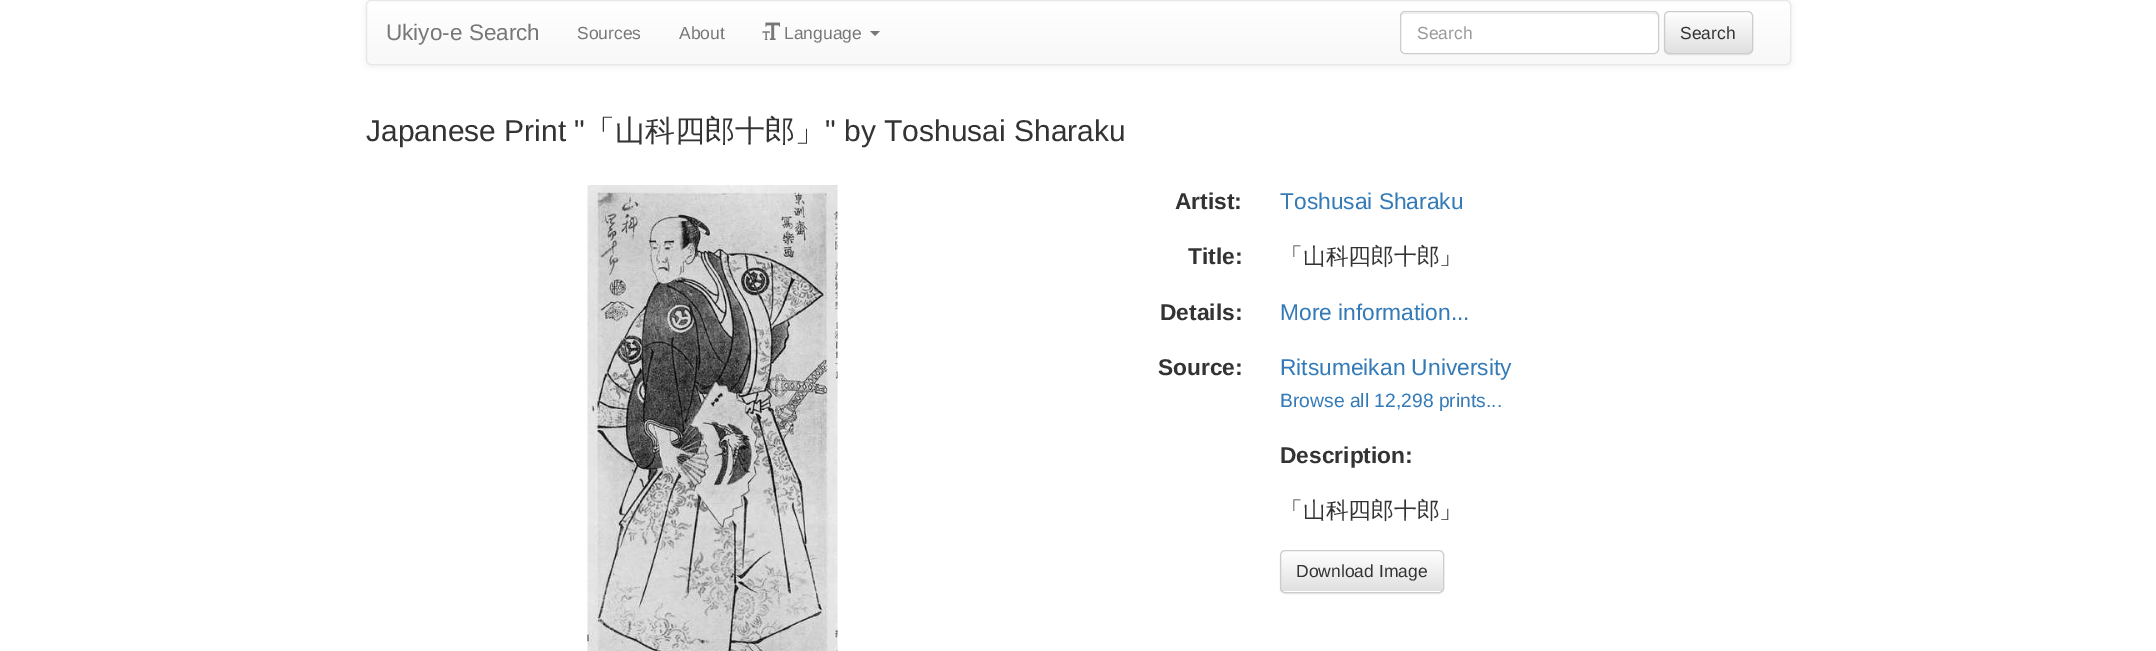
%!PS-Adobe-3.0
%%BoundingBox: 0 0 2156 651
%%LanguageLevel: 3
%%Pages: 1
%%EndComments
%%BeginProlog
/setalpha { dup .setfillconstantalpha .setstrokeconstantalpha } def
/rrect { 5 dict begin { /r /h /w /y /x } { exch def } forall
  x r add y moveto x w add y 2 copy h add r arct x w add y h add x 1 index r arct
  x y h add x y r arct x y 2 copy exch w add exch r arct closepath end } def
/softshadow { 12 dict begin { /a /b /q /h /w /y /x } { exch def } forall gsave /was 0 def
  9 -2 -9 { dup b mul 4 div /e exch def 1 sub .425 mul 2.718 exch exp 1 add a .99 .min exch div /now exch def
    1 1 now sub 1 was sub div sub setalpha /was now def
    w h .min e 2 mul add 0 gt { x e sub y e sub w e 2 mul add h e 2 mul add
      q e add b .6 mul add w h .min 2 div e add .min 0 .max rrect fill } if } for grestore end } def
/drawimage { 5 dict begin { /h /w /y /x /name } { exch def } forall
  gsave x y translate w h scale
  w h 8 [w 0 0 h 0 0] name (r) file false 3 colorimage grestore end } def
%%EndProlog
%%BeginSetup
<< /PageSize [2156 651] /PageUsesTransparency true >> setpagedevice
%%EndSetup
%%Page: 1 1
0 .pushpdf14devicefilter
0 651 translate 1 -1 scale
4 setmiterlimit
1 setgray
0 0 2156 651 rectfill
0 setgray
366 1 1425 65 5 3 0.07 softshadow
gsave
366 0 1425 65 5 rrect clip newpath
gsave newpath 366 1 moveto 1791 1 lineto 1791 64 lineto 366 64 lineto closepath clip newpath
<< /ShadingType 2 /ColorSpace /DeviceRGB /Coords [1079 1.2 1079 64] /Extend [true true] /Function << /FunctionType 2 /Domain [0 1] /C0 [1 1 1] /C1 [0.973 0.973 0.973] /N 1 >> >> shfill grestore
grestore
0.906 setgray
366.5 0.5 1424 64 4.5 rrect stroke
(images/1.raw) 762 22 18 18 drawimage
0.467 setgray
newpath 870 31 moveto 880 31 lineto 875 36 lineto closepath fill
1 setgray
1400 11 259 43 5 rrect fill
0.925 setgray
newpath 1405 14 moveto 1654 14 lineto 1656 14 1658 15 1658 18 curveto 1658 17 lineto 1658 15 1656 13 1654 13 curveto 1405 13 lineto 1403 13 1401 15 1401 17 curveto 1401 18 lineto 1401 15 1403 14 1405 14 curveto closepath fill
0.8 setgray
1400.5 11.5 258 42 4.5 rrect stroke
0 setgray
1664 13 89 42 5 0.5 0.07 softshadow
1 setgray
1664 11 89 43 5 rrect fill
gsave
1664 11 89 43 5 rrect clip newpath
gsave newpath 1664 13 moveto 1753 13 lineto 1753 53 lineto 1664 53 lineto closepath clip newpath
<< /ShadingType 2 /ColorSpace /DeviceRGB /Coords [1708 12 1708 53] /Extend [true true] /Function << /FunctionType 2 /Domain [0 1] /C0 [1 1 1] /C1 [0.878 0.878 0.878] /N 1 >> >> shfill grestore
grestore
0.8 setgray
1664.5 11.5 88 42 4.5 rrect stroke
(images/2.raw) 587 185 251 466 drawimage
0 setgray
1280 551 164 43 5 0.5 0.07 softshadow
1 setgray
1280 550 164 43 5 rrect fill
gsave
1280 550 164 43 5 rrect clip newpath
gsave newpath 1280 551 moveto 1444 551 lineto 1444 591 lineto 1280 591 lineto closepath clip newpath
<< /ShadingType 2 /ColorSpace /DeviceRGB /Coords [1362 551 1362 591] /Extend [true true] /Function << /FunctionType 2 /Domain [0 1] /C0 [1 1 1] /C1 [0.878 0.878 0.878] /N 1 >> >> shfill grestore
grestore
0.15 setalpha
newpath 1285 552 moveto 1439 552 lineto 1441 552 1442 554 1442 556 curveto 1442 590 lineto 1443 589 1443 588 1443 587 curveto 1443 555 lineto 1443 553 1441 551 1439 551 curveto 1285 551 lineto 1283 551 1281 553 1281 555 curveto 1281 556 lineto 1281 554 1283 552 1285 552 curveto closepath fill
1 setalpha
0.8 setgray
1280.5 550.5 163 42 4.5 rrect stroke
/LiberationSans-Regular [22.5 0 0 -22.5 0 0] selectfont
0.467 setgray
386 40 moveto (Ukiyo-e Search) show
/LiberationSans-Regular [17.5 0 0 -17.5 0 0] selectfont
577 39 moveto (Sources) show
679 39 moveto (About) show
784 39 moveto (Language) show
0.6 setgray
1417 39 moveto (Search) show
0.2 setgray
1680 39 moveto (Search) show
/LiberationSans-Regular [30 0 0 -30 0 0] selectfont
366 141 moveto (Japanese Print ") show
/WenQuanYiZenHei-Medium [30 0 0 -30 0 0] selectfont
585 141 moveto (「山科四郎十郎」) show
/LiberationSans-Regular [30 0 0 -30 0 0] selectfont
825 141 moveto (" by Toshusai Sharaku) show
/LiberationSans-Bold [22.75 0 0 -22.75 0 0] selectfont
1175 209 moveto (Artist:) show
/LiberationSans-Regular [22.75 0 0 -22.75 0 0] selectfont
0.2 0.478 0.718 setrgbcolor
1280 209 moveto (Toshusai Sharaku) show
/LiberationSans-Bold [22.75 0 0 -22.75 0 0] selectfont
0.2 setgray
1188 264 moveto (Title:) show
/WenQuanYiZenHei-Medium [22.75 0 0 -22.75 0 0] selectfont
1280 264 moveto (「山科四郎十郎」) show
/LiberationSans-Bold [22.75 0 0 -22.75 0 0] selectfont
1160 320 moveto (Details:) show
/LiberationSans-Regular [22.75 0 0 -22.75 0 0] selectfont
0.2 0.478 0.718 setrgbcolor
1280 320 moveto (More information...) show
/LiberationSans-Bold [22.75 0 0 -22.75 0 0] selectfont
0.2 setgray
1158 375 moveto (Source:) show
/LiberationSans-Regular [22.75 0 0 -22.75 0 0] selectfont
0.2 0.478 0.718 setrgbcolor
1280 375 moveto (Ritsumeikan University) show
/LiberationSans-Regular [19.3 0 0 -19.3 0 0] selectfont
1280 407 moveto (Browse all 12,298 prints...) show
/LiberationSans-Bold [22.75 0 0 -22.75 0 0] selectfont
0.2 setgray
1280 463 moveto (Description:) show
/WenQuanYiZenHei-Medium [22.75 0 0 -22.75 0 0] selectfont
1280 518 moveto (「山科四郎十郎」) show
/LiberationSans-Regular [17.5 0 0 -17.5 0 0] selectfont
1296 577 moveto (Download Image) show
.poppdf14devicefilter showpage
%%EOF
